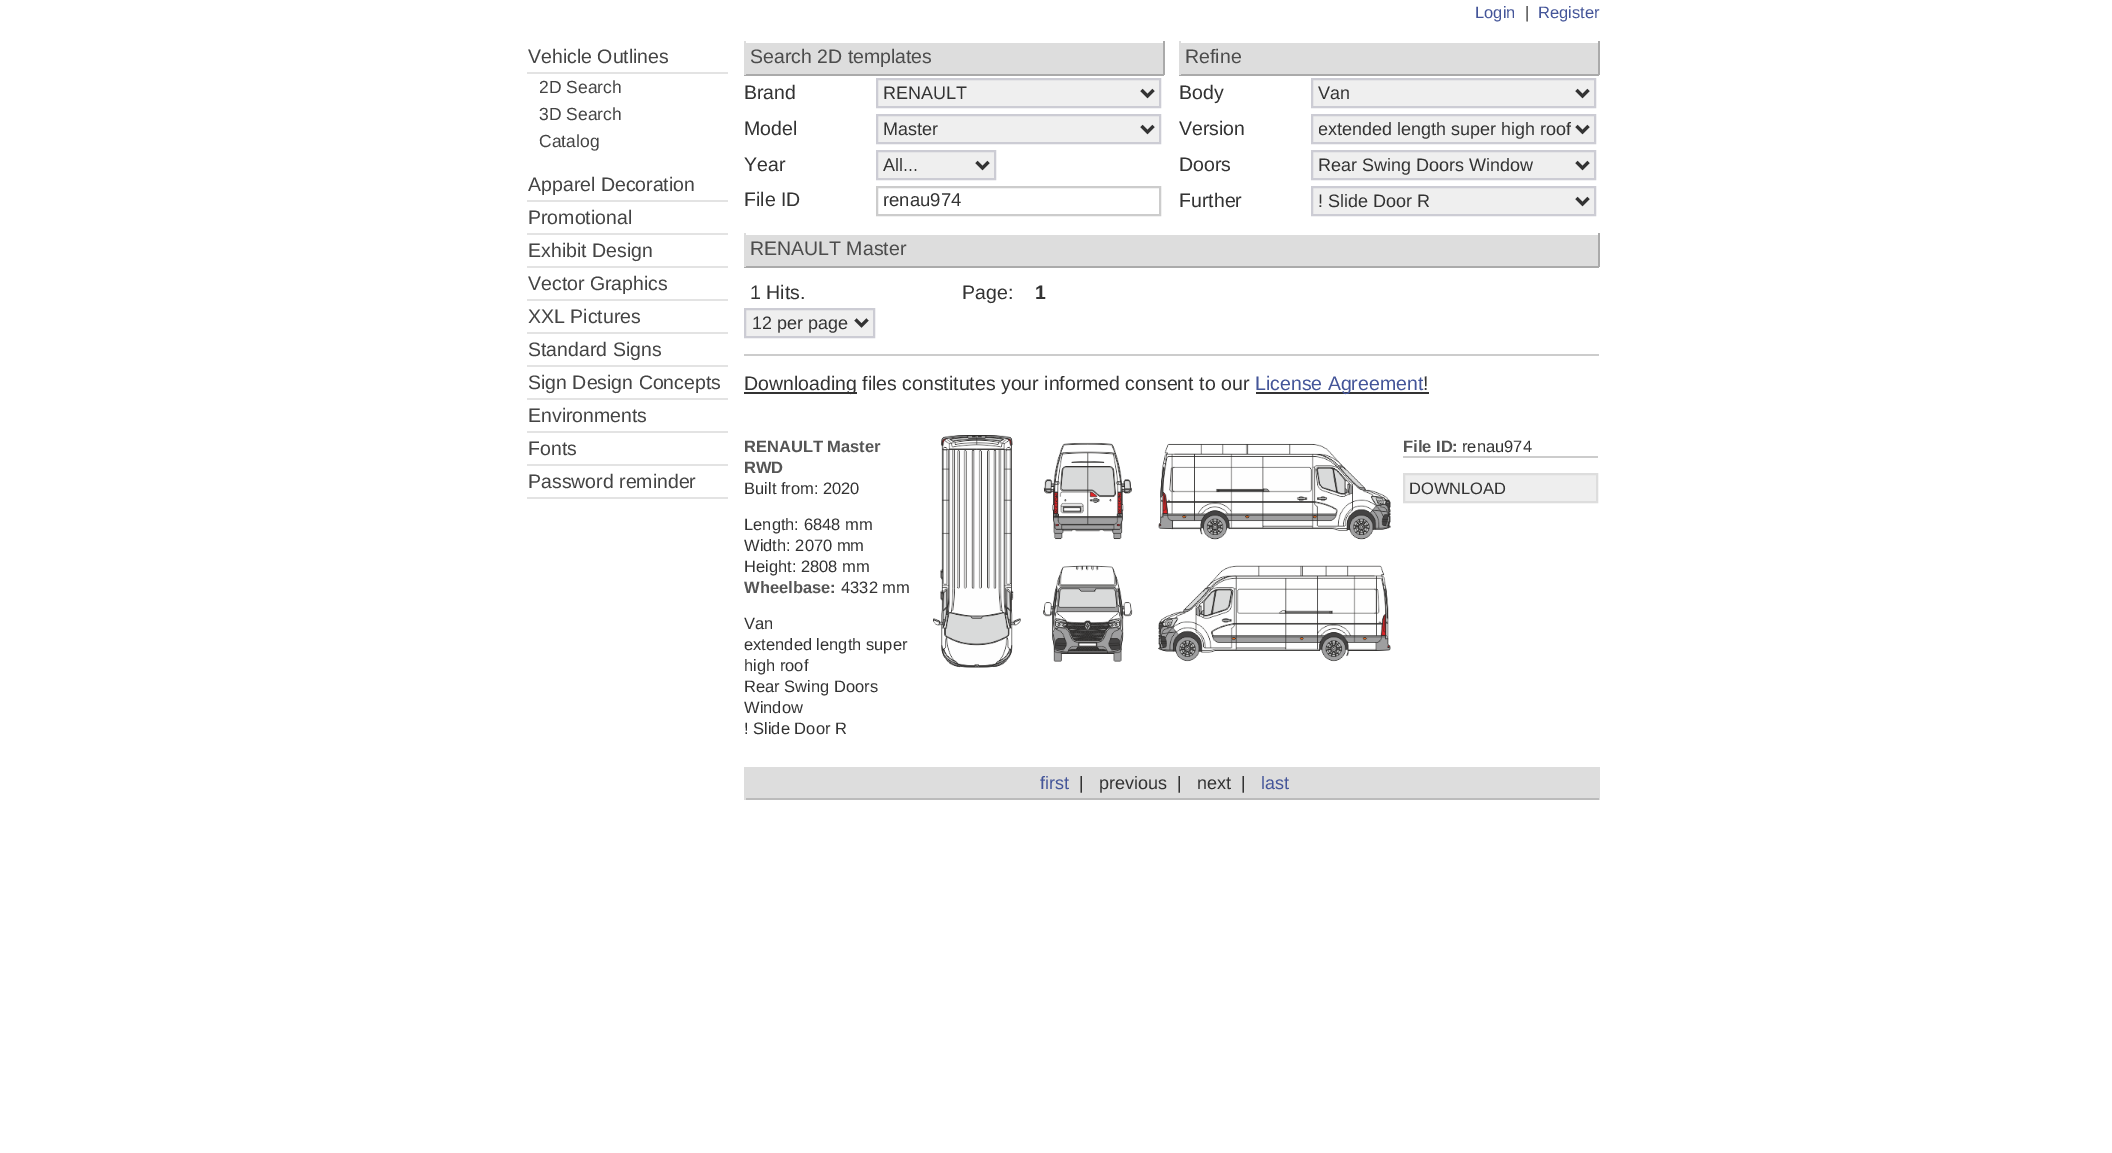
%!PS-Adobe-3.0
%%BoundingBox: 0 0 2112 1153
%%LanguageLevel: 3
%%Pages: 1
%%EndComments
%%BeginProlog
/drawimage { 5 dict begin { /h /w /y /x /name } { exch def } forall
  gsave x y translate w h scale
  w h 8 [w 0 0 h 0 0] name (r) file false 3 colorimage grestore end } def
%%EndProlog
%%BeginSetup
<< /PageSize [2112 1153] >> setpagedevice
%%EndSetup
%%Page: 1 1
0 1153 translate 1 -1 scale
4 setmiterlimit
1 setgray
0 0 2112 1153 rectfill
0.89 setgray
527 72 201 2 rectfill
527 200 201 2 rectfill
527 233 201 2 rectfill
527 266 201 2 rectfill
527 299 201 2 rectfill
527 332 201 2 rectfill
527 365 201 2 rectfill
527 398 201 2 rectfill
527 431 201 2 rectfill
527 464 201 2 rectfill
527 497 201 2 rectfill
0.867 setgray
746 43 417 31 rectfill
0.667 setgray
1163 41 2 34 rectfill
744 74 420 2 rectfill
0.867 setgray
744 41 2 34 rectfill
0.937 setgray
newpath 877 79 moveto 1160 79 lineto 1160 107 lineto 877 107 lineto closepath gsave fill grestore
0.8 0.8 0.831 setrgbcolor
2 setlinewidth
stroke
0.2 setgray
3 setlinewidth
newpath 1141.5 90 moveto 1147.5 96 lineto 1153.5 90 lineto stroke
0.937 setgray
newpath 877 115 moveto 1160 115 lineto 1160 143 lineto 877 143 lineto closepath gsave fill grestore
0.8 0.8 0.831 setrgbcolor
2 setlinewidth
stroke
0.2 setgray
3 setlinewidth
newpath 1141.5 126 moveto 1147.5 132 lineto 1153.5 126 lineto stroke
0.937 setgray
newpath 877 151 moveto 995 151 lineto 995 179 lineto 877 179 lineto closepath gsave fill grestore
0.8 0.8 0.831 setrgbcolor
2 setlinewidth
stroke
0.2 setgray
3 setlinewidth
newpath 976.5 162 moveto 982.5 168 lineto 988.5 162 lineto stroke
0.8 setgray
2 setlinewidth
877 187 283 28 rectstroke
0.867 setgray
1181 43 417 31 rectfill
0.667 setgray
1598 41 2 34 rectfill
1179 74 420 2 rectfill
0.867 setgray
1179 41 2 34 rectfill
0.937 setgray
newpath 1312 79 moveto 1595 79 lineto 1595 107 lineto 1312 107 lineto closepath gsave fill grestore
0.8 0.8 0.831 setrgbcolor
stroke
0.2 setgray
3 setlinewidth
newpath 1576.5 90 moveto 1582.5 96 lineto 1588.5 90 lineto stroke
0.937 setgray
newpath 1312 115 moveto 1595 115 lineto 1595 143 lineto 1312 143 lineto closepath gsave fill grestore
0.8 0.8 0.831 setrgbcolor
2 setlinewidth
stroke
0.2 setgray
3 setlinewidth
newpath 1576.5 126 moveto 1582.5 132 lineto 1588.5 126 lineto stroke
0.937 setgray
newpath 1312 151 moveto 1595 151 lineto 1595 179 lineto 1312 179 lineto closepath gsave fill grestore
0.8 0.8 0.831 setrgbcolor
2 setlinewidth
stroke
0.2 setgray
3 setlinewidth
newpath 1576.5 162 moveto 1582.5 168 lineto 1588.5 162 lineto stroke
0.937 setgray
newpath 1312 187 moveto 1595 187 lineto 1595 215 lineto 1312 215 lineto closepath gsave fill grestore
0.8 0.8 0.831 setrgbcolor
2 setlinewidth
stroke
0.2 setgray
3 setlinewidth
newpath 1576.5 198 moveto 1582.5 204 lineto 1588.5 198 lineto stroke
0.867 setgray
746 235 852 31 rectfill
0.667 setgray
1598 233 2 34 rectfill
744 266 855 2 rectfill
0.867 setgray
744 233 2 34 rectfill
0.937 setgray
newpath 745 309 moveto 874 309 lineto 874 337 lineto 745 337 lineto closepath gsave fill grestore
0.8 0.8 0.831 setrgbcolor
2 setlinewidth
stroke
0.2 setgray
3 setlinewidth
newpath 855.5 319.5 moveto 861.5 325.5 lineto 867.5 319.5 lineto stroke
0.8 setgray
744 354 855 2 rectfill
0.2 setgray
744 392 113 2 rectfill
1256 392 173 2 rectfill
(images/1.raw) 933 435 458 233 drawimage
0.8 setgray
1403 456 195 2 rectfill
0.933 setgray
newpath 1404 474 moveto 1597 474 lineto 1597 502 lineto 1404 502 lineto closepath gsave fill grestore
0.867 setgray
2 setlinewidth
stroke
746 767 852 31 rectfill
1598 767 2 33 rectfill
0.733 setgray
744 798 855 2 rectfill
0.867 setgray
744 767 2 33 rectfill
/LiberationSans-Regular [16.5 0 0 -16.5 0 0] selectfont
0.267 0.333 0.6 setrgbcolor
1475 18 moveto (Login) show
0.2 setgray
1525 18 moveto (|) show
0.267 0.333 0.6 setrgbcolor
1538 18 moveto (Register) show
/LiberationSans-Regular [19.5 0 0 -19.5 0 0] selectfont
0.267 setgray
528 63 moveto (Vehicle Outlines) show
/LiberationSans-Regular [17.5 0 0 -17.5 0 0] selectfont
539 93 moveto (2D Search) show
539 120 moveto (3D Search) show
539 147 moveto (Catalog) show
/LiberationSans-Regular [19.5 0 0 -19.5 0 0] selectfont
528 191 moveto (Apparel Decoration) show
528 224 moveto (Promotional) show
528 257 moveto (Exhibit Design) show
528 290 moveto (Vector Graphics) show
528 323 moveto (XXL Pictures) show
528 356 moveto (Standard Signs) show
528 389 moveto (Sign Design Concepts) show
528 422 moveto (Environments) show
528 455 moveto (Fonts) show
528 488 moveto (Password reminder) show
0.298 setgray
750 63 moveto (Search 2D templates) show
0.2 setgray
744 99 moveto (Brand) show
/LiberationSans-Regular [18 0 0 -18 0 0] selectfont
883 99 moveto (RENAULT) show
/LiberationSans-Regular [19.5 0 0 -19.5 0 0] selectfont
744 135 moveto (Model) show
/LiberationSans-Regular [18 0 0 -18 0 0] selectfont
883 135 moveto (Master) show
/LiberationSans-Regular [19.5 0 0 -19.5 0 0] selectfont
744 171 moveto (Year) show
/LiberationSans-Regular [18 0 0 -18 0 0] selectfont
883 171 moveto (All...) show
/LiberationSans-Regular [19.5 0 0 -19.5 0 0] selectfont
744 206 moveto (File ID) show
/LiberationSans-Regular [18.5 0 0 -18.5 0 0] selectfont
883 206 moveto (renau974) show
/LiberationSans-Regular [19.5 0 0 -19.5 0 0] selectfont
0.298 setgray
1185 63 moveto (Refine) show
0.2 setgray
1179 99 moveto (Body) show
/LiberationSans-Regular [18 0 0 -18 0 0] selectfont
1318 99 moveto (Van) show
/LiberationSans-Regular [19.5 0 0 -19.5 0 0] selectfont
1179 135 moveto (Version) show
gsave
1319 117 252 24 rectclip
/LiberationSans-Regular [18 0 0 -18 0 0] selectfont
1318 135 moveto (extended length super high roof) show
grestore
1179 171 moveto (Doors) show
/LiberationSans-Regular [18 0 0 -18 0 0] selectfont
1318 171 moveto (Rear Swing Doors Window) show
/LiberationSans-Regular [19.5 0 0 -19.5 0 0] selectfont
1179 207 moveto (Further) show
/LiberationSans-Regular [18 0 0 -18 0 0] selectfont
1318 207 moveto (! Slide Door R) show
/LiberationSans-Regular [19.5 0 0 -19.5 0 0] selectfont
0.298 setgray
750 255 moveto (RENAULT Master) show
0.2 setgray
750 299 moveto (1 Hits.) show
/LiberationSans-Regular [18 0 0 -18 0 0] selectfont
752 329 moveto (12 per page) show
/LiberationSans-Regular [19.5 0 0 -19.5 0 0] selectfont
962 299 moveto (Page:) show
/LiberationSans-Bold [19.5 0 0 -19.5 0 0] selectfont
1035 299 moveto (1) show
/LiberationSans-Regular [19.5 0 0 -19.5 0 0] selectfont
744 390 moveto (Downloading files constitutes your informed consent to our) show
0.267 0.333 0.6 setrgbcolor
1255 390 moveto (License Agreement) show
0.2 setgray
1423 390 moveto (!) show
/LiberationSans-Bold [16.5 0 0 -16.5 0 0] selectfont
0.333 setgray
744 452 moveto (RENAULT Master) show
744 473 moveto (RWD) show
/LiberationSans-Regular [16.5 0 0 -16.5 0 0] selectfont
0.2 setgray
744 494 moveto (Built from: 2020) show
744 530 moveto (Length: 6848 mm) show
744 551 moveto (Width: 2070 mm) show
744 572 moveto (Height: 2808 mm) show
/LiberationSans-Bold [16.5 0 0 -16.5 0 0] selectfont
0.333 setgray
744 593 moveto (Wheelbase:) show
/LiberationSans-Regular [16.5 0 0 -16.5 0 0] selectfont
0.2 setgray
841 593 moveto (4332 mm) show
744 629 moveto (Van) show
744 650 moveto (extended length super) show
744 671 moveto (high roof) show
744 692 moveto (Rear Swing Doors) show
744 713 moveto (Window) show
744 734 moveto (! Slide Door R) show
/LiberationSans-Bold [16.5 0 0 -16.5 0 0] selectfont
0.333 setgray
1403 452 moveto (File ID:) show
/LiberationSans-Regular [16.5 0 0 -16.5 0 0] selectfont
0.2 setgray
1462 452 moveto (renau974) show
1409 494 moveto (DOWNLOAD) show
/LiberationSans-Regular [18 0 0 -18 0 0] selectfont
0.267 0.333 0.6 setrgbcolor
1040 789 moveto (first) show
0.2 setgray
1079 789 moveto (|) show
1099 789 moveto (previous  |) show
1197 789 moveto (next  |) show
0.267 0.333 0.6 setrgbcolor
1261 789 moveto (last) show
showpage
%%EOF
